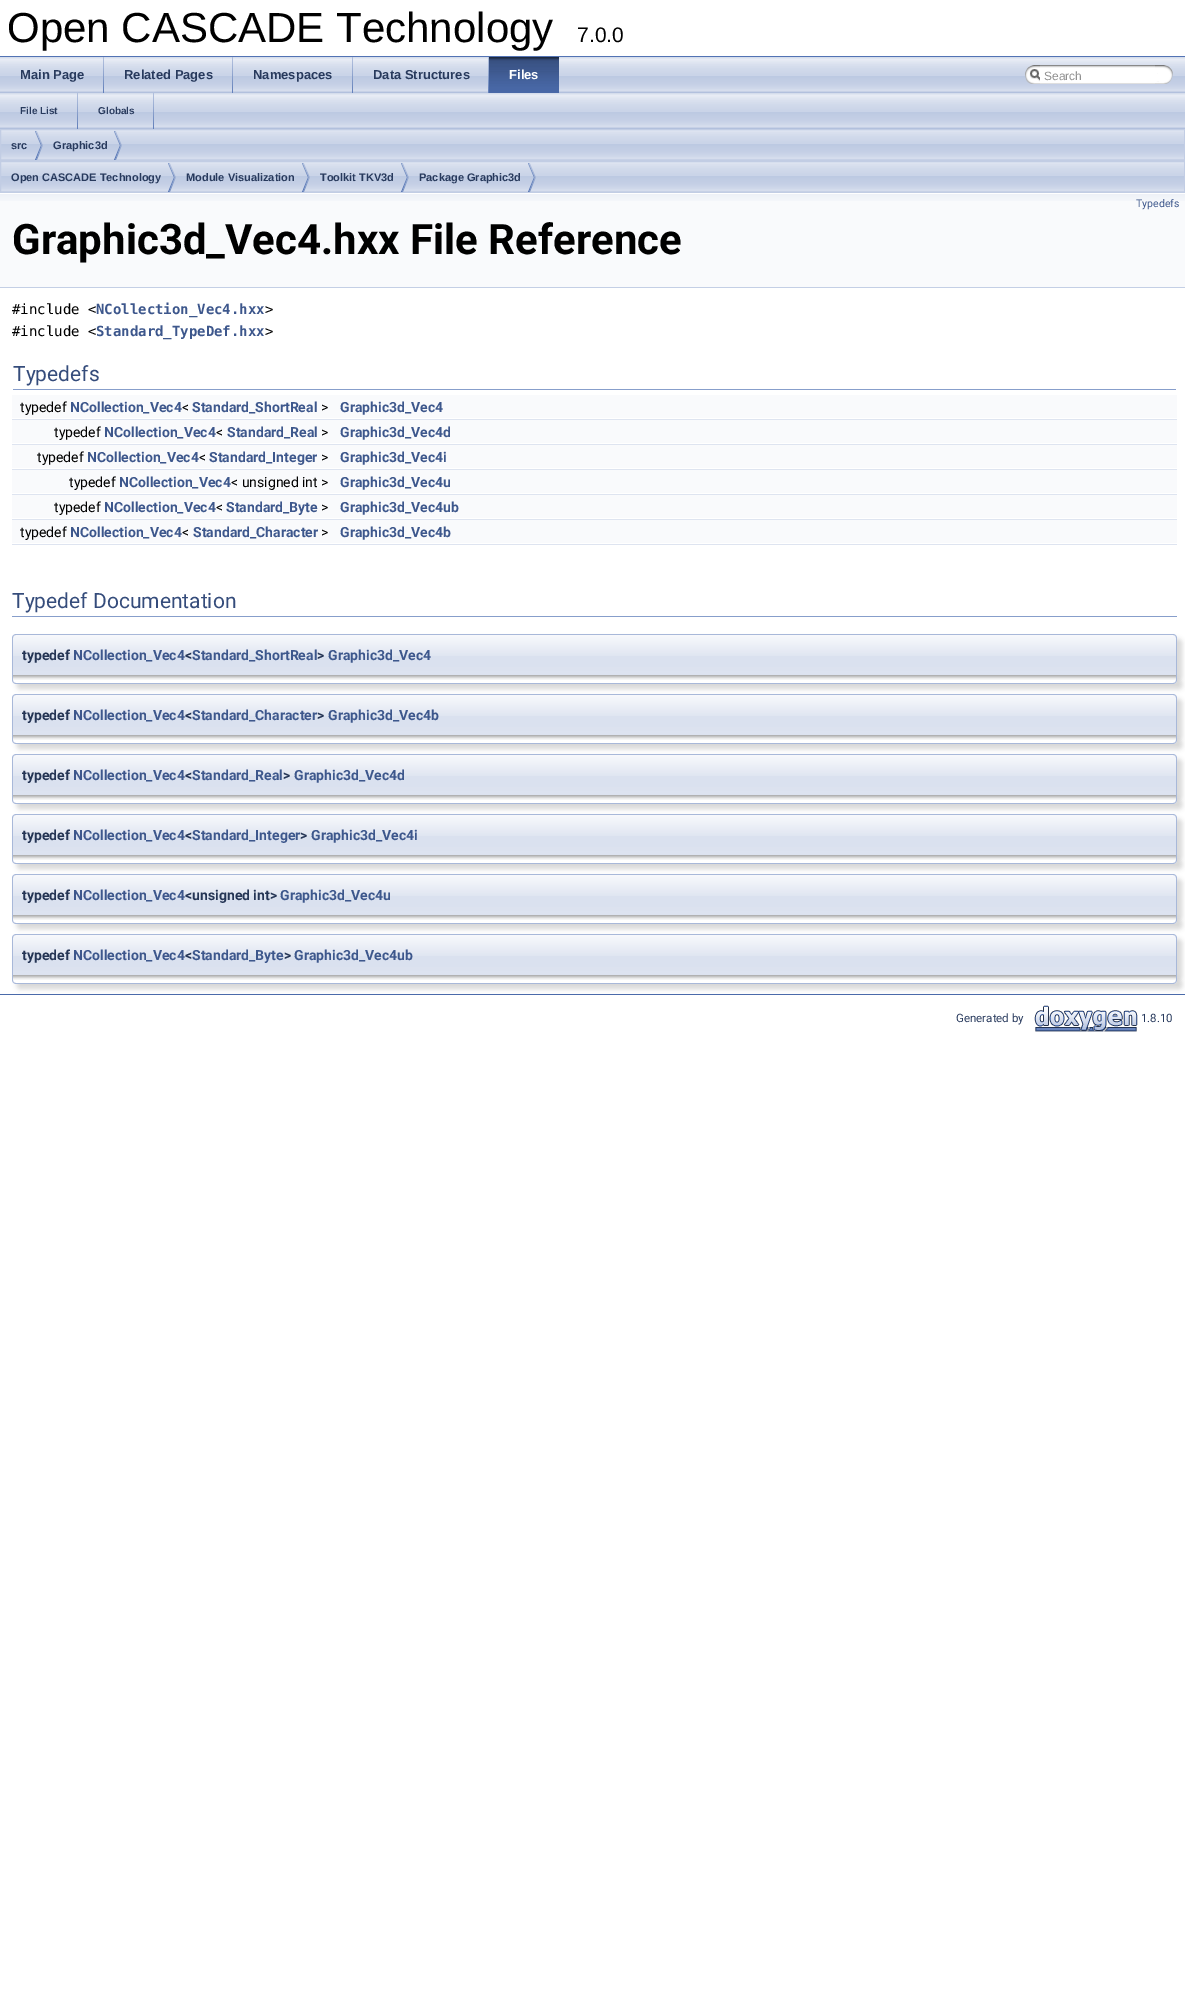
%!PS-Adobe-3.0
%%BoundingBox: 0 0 1185 2013
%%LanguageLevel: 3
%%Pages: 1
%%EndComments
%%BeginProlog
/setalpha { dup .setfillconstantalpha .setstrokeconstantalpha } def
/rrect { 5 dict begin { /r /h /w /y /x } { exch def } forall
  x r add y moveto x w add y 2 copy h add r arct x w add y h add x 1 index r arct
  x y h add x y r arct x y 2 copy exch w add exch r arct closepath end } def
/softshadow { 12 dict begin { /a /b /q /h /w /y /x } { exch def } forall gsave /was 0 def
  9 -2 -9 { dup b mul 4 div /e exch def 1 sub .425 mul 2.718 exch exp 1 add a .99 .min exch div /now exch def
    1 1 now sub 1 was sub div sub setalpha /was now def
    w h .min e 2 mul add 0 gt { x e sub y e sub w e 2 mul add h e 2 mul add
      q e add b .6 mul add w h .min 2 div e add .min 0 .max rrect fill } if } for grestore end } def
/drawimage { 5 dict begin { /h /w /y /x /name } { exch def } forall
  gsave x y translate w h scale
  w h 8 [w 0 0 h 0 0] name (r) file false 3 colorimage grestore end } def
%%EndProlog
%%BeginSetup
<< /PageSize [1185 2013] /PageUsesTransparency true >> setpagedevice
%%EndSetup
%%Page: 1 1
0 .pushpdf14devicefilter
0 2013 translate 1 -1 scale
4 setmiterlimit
1 setgray
0 0 1185 2013 rectfill
0.325 0.451 0.706 setrgbcolor
0 56 1185 1 rectfill
(images/1.raw) 0 57 1185 36 drawimage
(images/2.raw) 103 57 1 36 drawimage
(images/2.raw) 232 57 1 36 drawimage
(images/2.raw) 352 57 1 36 drawimage
(images/2.raw) 488 57 1 36 drawimage
(images/3.raw) 489 57 70 36 drawimage
(images/4.raw) 1025 65 15 19 drawimage
(images/5.raw) 1030 69 10 12 drawimage
(images/6.raw) 1040 65 115 19 drawimage
(images/7.raw) 1155 65 18 19 drawimage
(images/1.raw) 0 93 1185 36 drawimage
(images/2.raw) 77 93 1 36 drawimage
(images/2.raw) 153 93 1 36 drawimage
(images/8.raw) 1 130 1183 30 drawimage
0.761 0.804 0.894 setrgbcolor
0.5 129.5 1184 31 rectstroke
(images/9.raw) 35 131 8 29 drawimage
(images/9.raw) 114 131 8 29 drawimage
(images/8.raw) 1 162 1183 30 drawimage
0.5 161.5 1184 31 rectstroke
(images/9.raw) 168 163 8 29 drawimage
(images/9.raw) 302 163 8 29 drawimage
(images/9.raw) 401 163 8 29 drawimage
(images/9.raw) 528 163 8 29 drawimage
0.976 0.98 0.988 setrgbcolor
0 201 1185 86 rectfill
(images/10.raw) 0 193 1185 8 drawimage
0.769 0.812 0.898 setrgbcolor
0 287 1185 1 rectfill
0.529 0.62 0.796 setrgbcolor
13 389 1163 1 rectfill
0.976 0.98 0.988 setrgbcolor
12 395 1165 23 rectfill
0.871 0.894 0.941 setrgbcolor
12 419 1165 1 rectfill
0.976 0.98 0.988 setrgbcolor
12 420 1165 23 rectfill
0.871 0.894 0.941 setrgbcolor
12 444 1165 1 rectfill
0.976 0.98 0.988 setrgbcolor
12 445 1165 23 rectfill
0.871 0.894 0.941 setrgbcolor
12 469 1165 1 rectfill
0.976 0.98 0.988 setrgbcolor
12 470 1165 23 rectfill
0.871 0.894 0.941 setrgbcolor
12 494 1165 1 rectfill
0.976 0.98 0.988 setrgbcolor
12 495 1165 23 rectfill
0.871 0.894 0.941 setrgbcolor
12 519 1165 1 rectfill
0.976 0.98 0.988 setrgbcolor
12 520 1165 23 rectfill
0.871 0.894 0.941 setrgbcolor
12 544 1165 1 rectfill
0.529 0.62 0.796 setrgbcolor
12 616 1165 1 rectfill
0 setgray
17 639 1165 41 4 2.5 0.15 softshadow
(images/11.raw) 12 635 1165 40 drawimage
0.659 0.722 0.851 setrgbcolor
newpath 16 634 moveto 1173 634 lineto 1175 634 1177 636 1177 638 curveto 1177 675 lineto 12 675 lineto 12 638 lineto 12 636 14 634 16 634 curveto closepath 16 635 moveto 1173 635 lineto 1175 635 1176 636 1176 638 curveto 1176 675 lineto 13 675 lineto 13 638 lineto 13 636 14 635 16 635 curveto closepath eofill
0 setgray
17 680 1165 9 4 2.5 0.15 softshadow
1 setgray
newpath 12 675 moveto 1177 675 lineto 1177 680 lineto 1177 682 1175 684 1173 684 curveto 16 684 lineto 14 684 12 682 12 680 curveto closepath fill
(images/12.raw) 13 675 1163 5 drawimage
0.659 0.722 0.851 setrgbcolor
newpath 12 675 moveto 1177 675 lineto 1177 680 lineto 1177 682 1175 684 1173 684 curveto 16 684 lineto 14 684 12 682 12 680 curveto closepath 13 675 moveto 1176 675 lineto 1176 680 lineto 1176 682 1175 683 1173 683 curveto 16 683 lineto 14 683 13 682 13 680 curveto closepath eofill
0 setgray
17 699 1165 41 4 2.5 0.15 softshadow
(images/13.raw) 12 695 1165 40 drawimage
0.659 0.722 0.851 setrgbcolor
newpath 16 694 moveto 1173 694 lineto 1175 694 1177 696 1177 698 curveto 1177 735 lineto 12 735 lineto 12 698 lineto 12 696 14 694 16 694 curveto closepath 16 695 moveto 1173 695 lineto 1175 695 1176 696 1176 698 curveto 1176 735 lineto 13 735 lineto 13 698 lineto 13 696 14 695 16 695 curveto closepath eofill
0 setgray
17 740 1165 9 4 2.5 0.15 softshadow
1 setgray
newpath 12 735 moveto 1177 735 lineto 1177 740 lineto 1177 742 1175 744 1173 744 curveto 16 744 lineto 14 744 12 742 12 740 curveto closepath fill
(images/12.raw) 13 735 1163 5 drawimage
0.659 0.722 0.851 setrgbcolor
newpath 12 735 moveto 1177 735 lineto 1177 740 lineto 1177 742 1175 744 1173 744 curveto 16 744 lineto 14 744 12 742 12 740 curveto closepath 13 735 moveto 1176 735 lineto 1176 740 lineto 1176 742 1175 743 1173 743 curveto 16 743 lineto 14 743 13 742 13 740 curveto closepath eofill
0 setgray
17 759 1165 41 4 2.5 0.15 softshadow
(images/13.raw) 12 755 1165 40 drawimage
0.659 0.722 0.851 setrgbcolor
newpath 16 754 moveto 1173 754 lineto 1175 754 1177 756 1177 758 curveto 1177 795 lineto 12 795 lineto 12 758 lineto 12 756 14 754 16 754 curveto closepath 16 755 moveto 1173 755 lineto 1175 755 1176 756 1176 758 curveto 1176 795 lineto 13 795 lineto 13 758 lineto 13 756 14 755 16 755 curveto closepath eofill
0 setgray
17 800 1165 9 4 2.5 0.15 softshadow
1 setgray
newpath 12 795 moveto 1177 795 lineto 1177 800 lineto 1177 802 1175 804 1173 804 curveto 16 804 lineto 14 804 12 802 12 800 curveto closepath fill
(images/12.raw) 13 795 1163 5 drawimage
0.659 0.722 0.851 setrgbcolor
newpath 12 795 moveto 1177 795 lineto 1177 800 lineto 1177 802 1175 804 1173 804 curveto 16 804 lineto 14 804 12 802 12 800 curveto closepath 13 795 moveto 1176 795 lineto 1176 800 lineto 1176 802 1175 803 1173 803 curveto 16 803 lineto 14 803 13 802 13 800 curveto closepath eofill
0 setgray
17 819 1165 41 4 2.5 0.15 softshadow
(images/13.raw) 12 815 1165 40 drawimage
0.659 0.722 0.851 setrgbcolor
newpath 16 814 moveto 1173 814 lineto 1175 814 1177 816 1177 818 curveto 1177 855 lineto 12 855 lineto 12 818 lineto 12 816 14 814 16 814 curveto closepath 16 815 moveto 1173 815 lineto 1175 815 1176 816 1176 818 curveto 1176 855 lineto 13 855 lineto 13 818 lineto 13 816 14 815 16 815 curveto closepath eofill
0 setgray
17 860 1165 9 4 2.5 0.15 softshadow
1 setgray
newpath 12 855 moveto 1177 855 lineto 1177 860 lineto 1177 862 1175 864 1173 864 curveto 16 864 lineto 14 864 12 862 12 860 curveto closepath fill
(images/12.raw) 13 855 1163 5 drawimage
0.659 0.722 0.851 setrgbcolor
newpath 12 855 moveto 1177 855 lineto 1177 860 lineto 1177 862 1175 864 1173 864 curveto 16 864 lineto 14 864 12 862 12 860 curveto closepath 13 855 moveto 1176 855 lineto 1176 860 lineto 1176 862 1175 863 1173 863 curveto 16 863 lineto 14 863 13 862 13 860 curveto closepath eofill
0 setgray
17 879 1165 41 4 2.5 0.15 softshadow
(images/13.raw) 12 875 1165 40 drawimage
0.659 0.722 0.851 setrgbcolor
newpath 16 874 moveto 1173 874 lineto 1175 874 1177 876 1177 878 curveto 1177 915 lineto 12 915 lineto 12 878 lineto 12 876 14 874 16 874 curveto closepath 16 875 moveto 1173 875 lineto 1175 875 1176 876 1176 878 curveto 1176 915 lineto 13 915 lineto 13 878 lineto 13 876 14 875 16 875 curveto closepath eofill
0 setgray
17 920 1165 9 4 2.5 0.15 softshadow
1 setgray
newpath 12 915 moveto 1177 915 lineto 1177 920 lineto 1177 922 1175 924 1173 924 curveto 16 924 lineto 14 924 12 922 12 920 curveto closepath fill
(images/12.raw) 13 915 1163 5 drawimage
0.659 0.722 0.851 setrgbcolor
newpath 12 915 moveto 1177 915 lineto 1177 920 lineto 1177 922 1175 924 1173 924 curveto 16 924 lineto 14 924 12 922 12 920 curveto closepath 13 915 moveto 1176 915 lineto 1176 920 lineto 1176 922 1175 923 1173 923 curveto 16 923 lineto 14 923 13 922 13 920 curveto closepath eofill
0 setgray
17 939 1165 41 4 2.5 0.15 softshadow
(images/13.raw) 12 935 1165 40 drawimage
0.659 0.722 0.851 setrgbcolor
newpath 16 934 moveto 1173 934 lineto 1175 934 1177 936 1177 938 curveto 1177 975 lineto 12 975 lineto 12 938 lineto 12 936 14 934 16 934 curveto closepath 16 935 moveto 1173 935 lineto 1175 935 1176 936 1176 938 curveto 1176 975 lineto 13 975 lineto 13 938 lineto 13 936 14 935 16 935 curveto closepath eofill
0 setgray
17 980 1165 9 4 2.5 0.15 softshadow
1 setgray
newpath 12 975 moveto 1177 975 lineto 1177 980 lineto 1177 982 1175 984 1173 984 curveto 16 984 lineto 14 984 12 982 12 980 curveto closepath fill
(images/12.raw) 13 975 1163 5 drawimage
0.659 0.722 0.851 setrgbcolor
newpath 12 975 moveto 1177 975 lineto 1177 980 lineto 1177 982 1175 984 1173 984 curveto 16 984 lineto 14 984 12 982 12 980 curveto closepath 13 975 moveto 1176 975 lineto 1176 980 lineto 1176 982 1175 983 1173 983 curveto 16 983 lineto 14 983 13 982 13 980 curveto closepath eofill
0.29 0.416 0.667 setrgbcolor
0 994 1185 1 rectfill
(images/14.raw) 1034 1005 104 27 drawimage
/LiberationSans-Regular [42 0 0 -42 0 0] selectfont
0 setgray
7 42 moveto (Open CASCADE Technology) show
/LiberationSans-Regular [21 0 0 -21 0 0] selectfont
577 42 moveto (7.0.0) show
/LiberationSans-Bold [13 0 0 -13 0 0] selectfont
0.157 0.227 0.365 setrgbcolor
20 79 moveto (Main Page) show
124 79 moveto (Related Pages) show
253 79 moveto (Namespaces) show
373 79 moveto (Data Structures) show
1 setgray
509 79 moveto (Files) show
/LiberationSans-Regular [12 0 0 -12 0 0] selectfont
0.565 setgray
1044 80 moveto (Search) show
/LiberationSans-Bold [10 0 0 -10 0 0] selectfont
0.157 0.227 0.365 setrgbcolor
20 114 moveto (File List) show
98 114 moveto (Globals) show
/LiberationSans-Bold [11 0 0 -11 0 0] selectfont
11 149 moveto (src) show
53 149 moveto (Graphic3d) show
11 181 moveto (Open CASCADE Technology) show
186 181 moveto (Module Visualization) show
320 181 moveto (Toolkit TKV3d) show
419 181 moveto (Package Graphic3d) show
/Roboto-Regular [10.5 0 0 -10.5 0 0] selectfont
0.239 0.341 0.549 setrgbcolor
1136 207 moveto (Typedefs) show
/Roboto-Bold [42 0 0 -42 0 0] selectfont
0 setgray
12 254 moveto (Graphic3d_Vec4.hxx File Reference) show
/DejaVuSansMono-Regular [14 0 0 -14 0 0] selectfont
12 314 moveto (#include <) show
/DejaVuSansMono-Bold [14 0 0 -14 0 0] selectfont
0.239 0.341 0.549 setrgbcolor
96 314 moveto (NCollection_Vec4.hxx) show
/DejaVuSansMono-Regular [14 0 0 -14 0 0] selectfont
0 setgray
265 314 moveto (>) show
12 336 moveto (#include <) show
/DejaVuSansMono-Bold [14 0 0 -14 0 0] selectfont
0.239 0.341 0.549 setrgbcolor
96 336 moveto (Standard_TypeDef.hxx) show
/DejaVuSansMono-Regular [14 0 0 -14 0 0] selectfont
0 setgray
265 336 moveto (>) show
/Roboto-Regular [21 0 0 -21 0 0] selectfont
0.208 0.298 0.482 setrgbcolor
13 381 moveto (Typedefs) show
/Roboto-Regular [14 0 0 -14 0 0] selectfont
0 setgray
20 412 moveto (typedef) show
/Roboto-Bold [14 0 0 -14 0 0] selectfont
0.239 0.341 0.549 setrgbcolor
70 412 moveto (NCollection_Vec4) show
/Roboto-Regular [14 0 0 -14 0 0] selectfont
0 setgray
182 412 moveto (<) show
/Roboto-Bold [14 0 0 -14 0 0] selectfont
0.239 0.341 0.549 setrgbcolor
192 412 moveto (Standard_ShortReal) show
/Roboto-Regular [14 0 0 -14 0 0] selectfont
0 setgray
321 412 moveto (>) show
/Roboto-Bold [14 0 0 -14 0 0] selectfont
0.239 0.341 0.549 setrgbcolor
340 412 moveto (Graphic3d_Vec4) show
/Roboto-Regular [14 0 0 -14 0 0] selectfont
0 setgray
54 437 moveto (typedef) show
/Roboto-Bold [14 0 0 -14 0 0] selectfont
0.239 0.341 0.549 setrgbcolor
104 437 moveto (NCollection_Vec4) show
/Roboto-Regular [14 0 0 -14 0 0] selectfont
0 setgray
216 437 moveto (<) show
/Roboto-Bold [14 0 0 -14 0 0] selectfont
0.239 0.341 0.549 setrgbcolor
227 437 moveto (Standard_Real) show
/Roboto-Regular [14 0 0 -14 0 0] selectfont
0 setgray
321 437 moveto (>) show
/Roboto-Bold [14 0 0 -14 0 0] selectfont
0.239 0.341 0.549 setrgbcolor
340 437 moveto (Graphic3d_Vec4d) show
/Roboto-Regular [14 0 0 -14 0 0] selectfont
0 setgray
37 462 moveto (typedef) show
/Roboto-Bold [14 0 0 -14 0 0] selectfont
0.239 0.341 0.549 setrgbcolor
87 462 moveto (NCollection_Vec4) show
/Roboto-Regular [14 0 0 -14 0 0] selectfont
0 setgray
199 462 moveto (<) show
/Roboto-Bold [14 0 0 -14 0 0] selectfont
0.239 0.341 0.549 setrgbcolor
209 462 moveto (Standard_Integer) show
/Roboto-Regular [14 0 0 -14 0 0] selectfont
0 setgray
321 462 moveto (>) show
/Roboto-Bold [14 0 0 -14 0 0] selectfont
0.239 0.341 0.549 setrgbcolor
340 462 moveto (Graphic3d_Vec4i) show
/Roboto-Regular [14 0 0 -14 0 0] selectfont
0 setgray
69 487 moveto (typedef) show
/Roboto-Bold [14 0 0 -14 0 0] selectfont
0.239 0.341 0.549 setrgbcolor
119 487 moveto (NCollection_Vec4) show
/Roboto-Regular [14 0 0 -14 0 0] selectfont
0 setgray
231 487 moveto (< unsigned int >) show
/Roboto-Bold [14 0 0 -14 0 0] selectfont
0.239 0.341 0.549 setrgbcolor
340 487 moveto (Graphic3d_Vec4u) show
/Roboto-Regular [14 0 0 -14 0 0] selectfont
0 setgray
54 512 moveto (typedef) show
/Roboto-Bold [14 0 0 -14 0 0] selectfont
0.239 0.341 0.549 setrgbcolor
104 512 moveto (NCollection_Vec4) show
/Roboto-Regular [14 0 0 -14 0 0] selectfont
0 setgray
216 512 moveto (<) show
/Roboto-Bold [14 0 0 -14 0 0] selectfont
0.239 0.341 0.549 setrgbcolor
226 512 moveto (Standard_Byte) show
/Roboto-Regular [14 0 0 -14 0 0] selectfont
0 setgray
321 512 moveto (>) show
/Roboto-Bold [14 0 0 -14 0 0] selectfont
0.239 0.341 0.549 setrgbcolor
340 512 moveto (Graphic3d_Vec4ub) show
/Roboto-Regular [14 0 0 -14 0 0] selectfont
0 setgray
20 537 moveto (typedef) show
/Roboto-Bold [14 0 0 -14 0 0] selectfont
0.239 0.341 0.549 setrgbcolor
70 537 moveto (NCollection_Vec4) show
/Roboto-Regular [14 0 0 -14 0 0] selectfont
0 setgray
182 537 moveto (<) show
/Roboto-Bold [14 0 0 -14 0 0] selectfont
0.239 0.341 0.549 setrgbcolor
193 537 moveto (Standard_Character) show
/Roboto-Regular [14 0 0 -14 0 0] selectfont
0 setgray
321 537 moveto (>) show
/Roboto-Bold [14 0 0 -14 0 0] selectfont
0.239 0.341 0.549 setrgbcolor
340 537 moveto (Graphic3d_Vec4b) show
/Roboto-Regular [21 0 0 -21 0 0] selectfont
0.208 0.298 0.482 setrgbcolor
12 608 moveto (Typedef Documentation) show
/Roboto-Bold [14 0 0 -14 0 0] selectfont
0.145 0.208 0.333 setrgbcolor
22 660 moveto (typedef) show
0.239 0.341 0.549 setrgbcolor
73 660 moveto (NCollection_Vec4) show
0.145 0.208 0.333 setrgbcolor
185 660 moveto (<) show
0.239 0.341 0.549 setrgbcolor
192 660 moveto (Standard_ShortReal) show
0.145 0.208 0.333 setrgbcolor
317 660 moveto (>) show
0.239 0.341 0.549 setrgbcolor
328 660 moveto (Graphic3d_Vec4) show
0.145 0.208 0.333 setrgbcolor
22 720 moveto (typedef) show
0.239 0.341 0.549 setrgbcolor
73 720 moveto (NCollection_Vec4) show
0.145 0.208 0.333 setrgbcolor
185 720 moveto (<) show
0.239 0.341 0.549 setrgbcolor
192 720 moveto (Standard_Character) show
0.145 0.208 0.333 setrgbcolor
317 720 moveto (>) show
0.239 0.341 0.549 setrgbcolor
328 720 moveto (Graphic3d_Vec4b) show
0.145 0.208 0.333 setrgbcolor
22 780 moveto (typedef) show
0.239 0.341 0.549 setrgbcolor
73 780 moveto (NCollection_Vec4) show
0.145 0.208 0.333 setrgbcolor
185 780 moveto (<) show
0.239 0.341 0.549 setrgbcolor
192 780 moveto (Standard_Real) show
0.145 0.208 0.333 setrgbcolor
283 780 moveto (>) show
0.239 0.341 0.549 setrgbcolor
294 780 moveto (Graphic3d_Vec4d) show
0.145 0.208 0.333 setrgbcolor
22 840 moveto (typedef) show
0.239 0.341 0.549 setrgbcolor
73 840 moveto (NCollection_Vec4) show
0.145 0.208 0.333 setrgbcolor
185 840 moveto (<) show
0.239 0.341 0.549 setrgbcolor
192 840 moveto (Standard_Integer) show
0.145 0.208 0.333 setrgbcolor
300 840 moveto (>) show
0.239 0.341 0.549 setrgbcolor
311 840 moveto (Graphic3d_Vec4i) show
0.145 0.208 0.333 setrgbcolor
22 900 moveto (typedef) show
0.239 0.341 0.549 setrgbcolor
73 900 moveto (NCollection_Vec4) show
0.145 0.208 0.333 setrgbcolor
185 900 moveto (<unsigned int>) show
0.239 0.341 0.549 setrgbcolor
280 900 moveto (Graphic3d_Vec4u) show
0.145 0.208 0.333 setrgbcolor
22 960 moveto (typedef) show
0.239 0.341 0.549 setrgbcolor
73 960 moveto (NCollection_Vec4) show
0.145 0.208 0.333 setrgbcolor
185 960 moveto (<) show
0.239 0.341 0.549 setrgbcolor
192 960 moveto (Standard_Byte) show
0.145 0.208 0.333 setrgbcolor
284 960 moveto (>) show
0.239 0.341 0.549 setrgbcolor
294 960 moveto (Graphic3d_Vec4ub) show
/Roboto-Regular [11.5 0 0 -11.5 0 0] selectfont
0.157 0.227 0.365 setrgbcolor
956 1022 moveto (Generated by) show
1141 1022 moveto (1.8.10) show
.poppdf14devicefilter showpage
%%EOF
